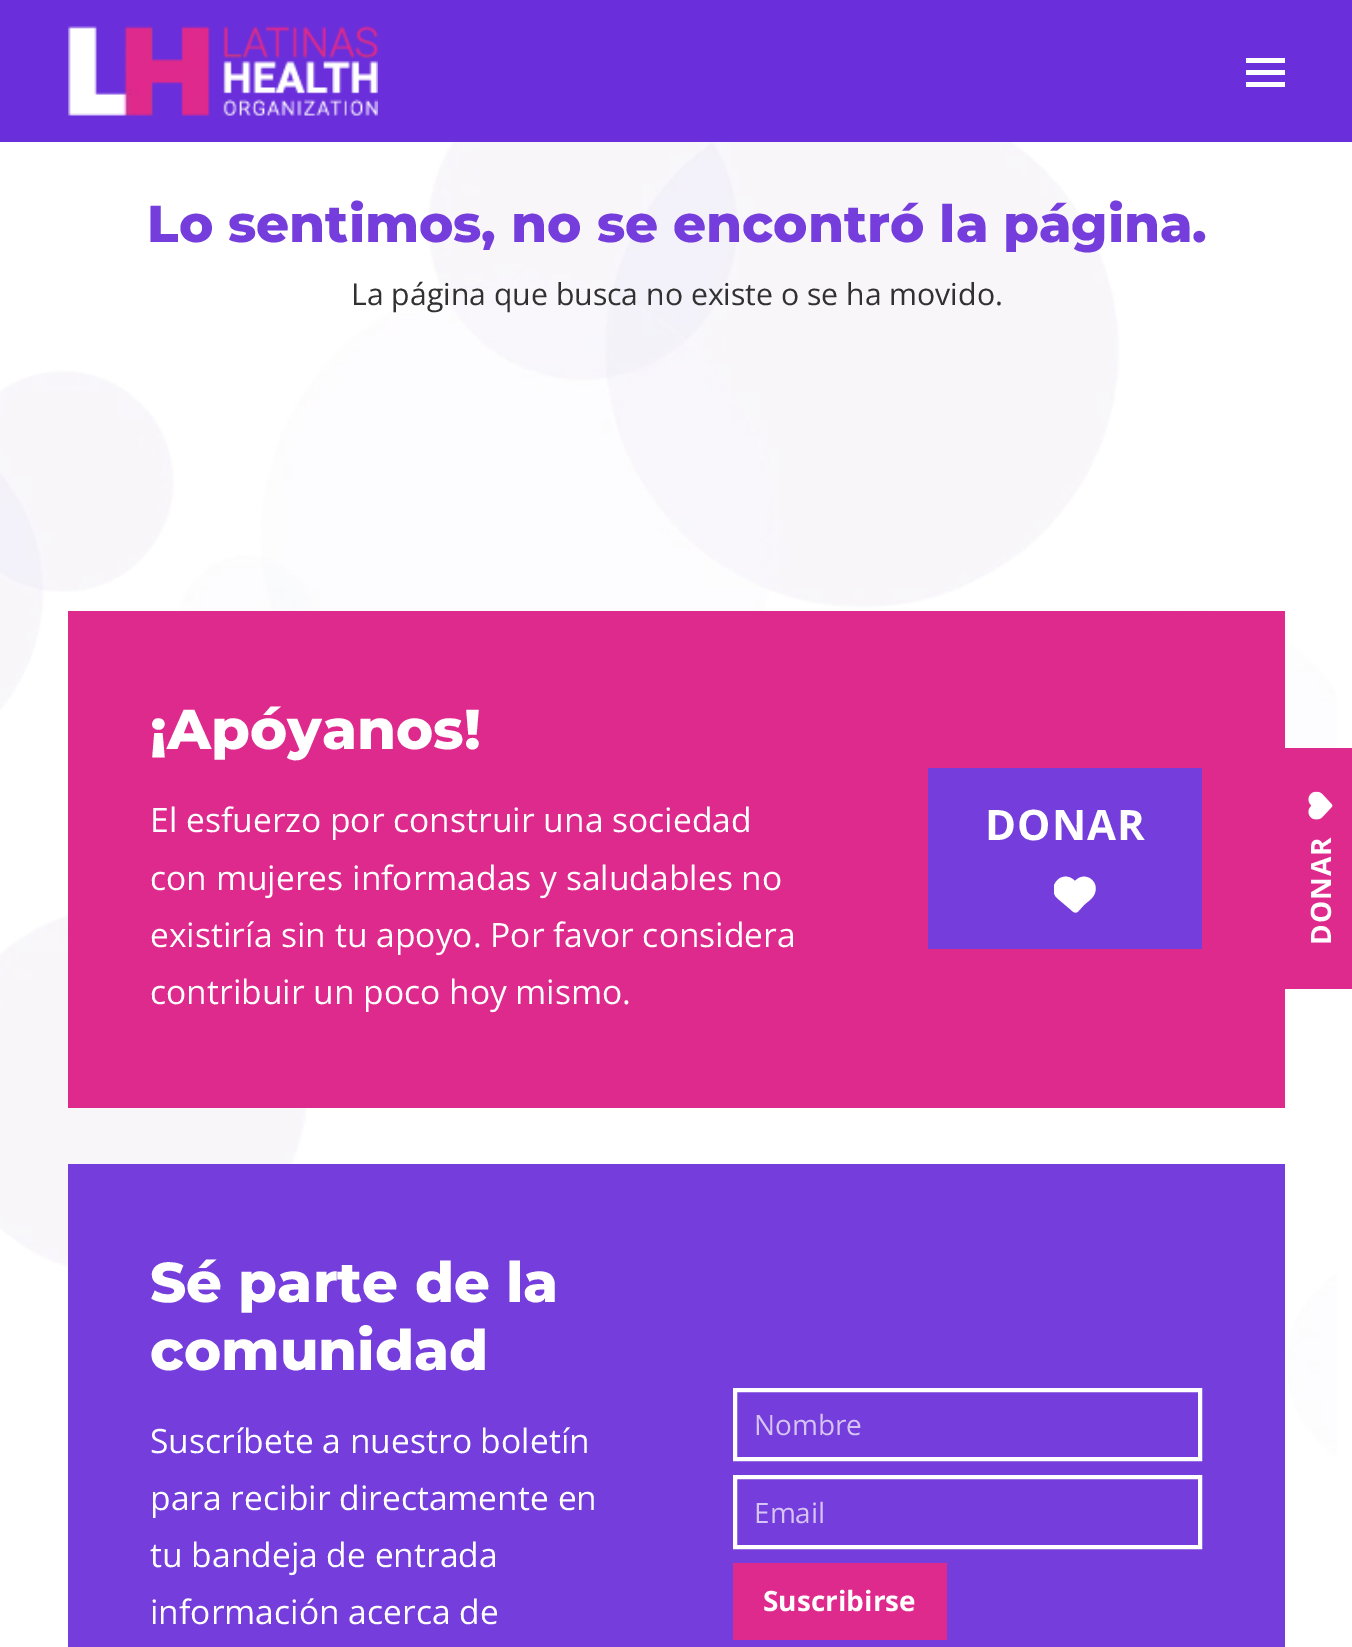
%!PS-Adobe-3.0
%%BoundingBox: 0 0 1352 1647
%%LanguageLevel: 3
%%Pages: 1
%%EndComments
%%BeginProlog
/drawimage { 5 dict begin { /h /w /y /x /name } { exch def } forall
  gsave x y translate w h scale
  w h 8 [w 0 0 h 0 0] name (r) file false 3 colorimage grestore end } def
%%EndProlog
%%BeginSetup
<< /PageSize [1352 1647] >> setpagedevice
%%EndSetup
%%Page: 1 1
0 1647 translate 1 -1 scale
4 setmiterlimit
1 setgray
0 0 1352 1647 rectfill
(images/1.raw) 0 142 1337 1316 drawimage
0.42 0.18 0.859 setrgbcolor
0 0 1352 142 rectfill
(images/2.raw) 68 26 310 90 drawimage
1 setgray
1246 70 39 5 rectfill
1246 58 39 5 rectfill
1246 82 39 5 rectfill
0.875 0.165 0.553 setrgbcolor
68 611 1217 497 rectfill
0.459 0.239 0.859 setrgbcolor
928 768 274 181 rectfill
gsave
1054 873 42 42 rectclip
1 setgray
newpath 1057 898 moveto 1070 909 lineto 1077 916 1077 912 1084 905 curveto 1087 902 1092 899 1094 895 curveto 1101 882 1085 870 1075 881 curveto 1062 868 1046 887 1057 898 curveto closepath fill
grestore
0.875 0.165 0.553 setrgbcolor
1285 748 67 241 rectfill
(images/3.raw) 1308 791 25 29 drawimage
0.459 0.239 0.859 setrgbcolor
68 1164 1217 483 rectfill
1 setgray
4 setlinewidth
735 1390 465 69 rectstroke
735 1477 465 70 rectstroke
0.875 0.165 0.553 setrgbcolor
733 1563 214 77 rectfill
/Montserrat-ExtraBold [51.7 0 0 -51.7 0 0] selectfont
0.459 0.239 0.859 setrgbcolor
147 242 moveto (Lo sentimos, no se encontró la página.) show
/OpenSans-Regular [30.2 0 0 -30.2 0 0] selectfont
0.192 setgray
351 305 moveto (La página que busca no existe o se ha movido.) show
/Montserrat-ExtraBold [56 0 0 -56 0 0] selectfont
1 setgray
150 749 moveto (¡Apóyanos!) show
/OpenSans-Regular [33.6 0 0 -33.6 0 0] selectfont
150 832 moveto (El esfuerzo por construir una sociedad) show
150 890 moveto (con mujeres informadas y saludables no) show
150 947 moveto (existiría sin tu apoyo. Por favor considera) show
150 1004 moveto (contribuir un poco hoy mismo.) show
/OpenSans-Bold [42 0 0 -42 0 0] selectfont
985 840 moveto 1 0 (DONAR) ashow
/OpenSans-Bold [28 0 0 -28 0 0] selectfont
gsave 1331 945 translate -90 rotate 0 0 moveto 1 0 (DONAR) ashow grestore
/Montserrat-ExtraBold [56 0 0 -56 0 0] selectfont
150 1302 moveto (Sé parte de la) show
150 1370 moveto (comunidad) show
/OpenSans-Regular [33.6 0 0 -33.6 0 0] selectfont
150 1453 moveto (Suscríbete a nuestro boletín) show
150 1510 moveto (para recibir directamente en) show
150 1567 moveto (tu bandeja de entrada) show
150 1624 moveto (información acerca de) show
/OpenSans-Regular [28 0 0 -28 0 0] selectfont
0.839 0.773 0.957 setrgbcolor
754 1435 moveto (Nombre) show
754 1523 moveto (Email) show
/OpenSans-Bold [28 0 0 -28 0 0] selectfont
1 setgray
763 1611 moveto (Suscribirse) show
showpage
%%EOF
